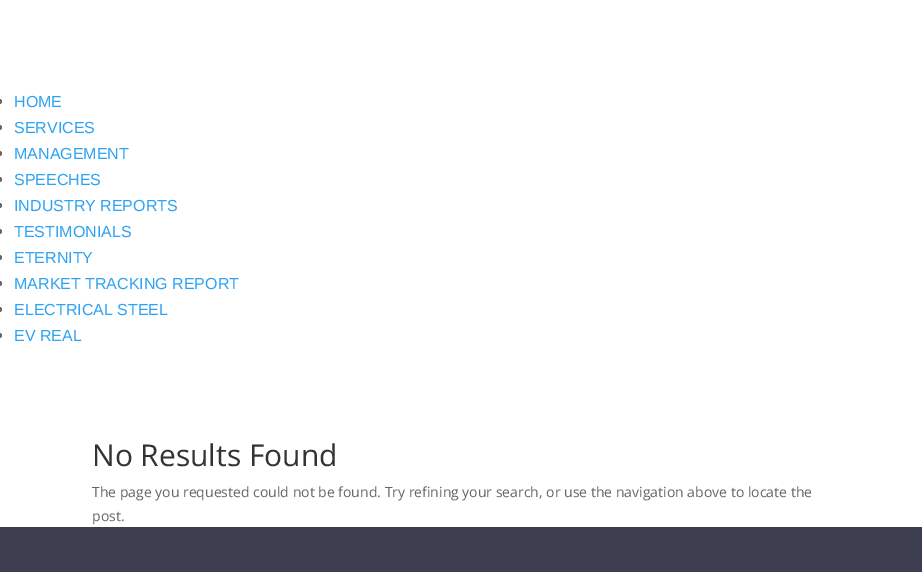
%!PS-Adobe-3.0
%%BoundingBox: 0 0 922 572
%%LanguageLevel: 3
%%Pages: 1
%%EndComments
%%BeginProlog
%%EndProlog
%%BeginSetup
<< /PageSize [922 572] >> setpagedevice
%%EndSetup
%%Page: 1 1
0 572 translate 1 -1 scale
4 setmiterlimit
1 setgray
0 0 922 572 rectfill
0.4 setgray
newpath -0.5 101.5 2.5 0 360 arc closepath fill
newpath -0.5 127.5 2.5 0 360 arc closepath fill
newpath -0.5 153.5 2.5 0 360 arc closepath fill
newpath -0.5 179.5 2.5 0 360 arc closepath fill
newpath -0.5 205.5 2.5 0 360 arc closepath fill
newpath -0.5 231.5 2.5 0 360 arc closepath fill
newpath -0.5 257.5 2.5 0 360 arc closepath fill
newpath -0.5 283.5 2.5 0 360 arc closepath fill
newpath -0.5 309.5 2.5 0 360 arc closepath fill
newpath -0.5 335.5 2.5 0 360 arc closepath fill
0.235 0.243 0.31 setrgbcolor
0 527 922 45 rectfill
/LiberationSans-Regular [16 0 0 -16 0 0] selectfont
0.18 0.639 0.949 setrgbcolor
14 107 moveto (HOME) show
14 133 moveto (SERVICES) show
14 159 moveto (MANAGEMENT) show
14 185 moveto (SPEECHES) show
14 211 moveto (INDUSTRY REPORTS) show
14 237 moveto (TESTIMONIALS) show
14 263 moveto (ETERNITY) show
14 289 moveto (MARKET TRACKING REPORT) show
14 315 moveto (ELECTRICAL STEEL) show
14 341 moveto (EV REAL) show
/OpenSans-Regular [30 0 0 -30 0 0] selectfont
0.2 setgray
92 466 moveto (No Results Found) show
/OpenSans-Regular [14 0 0 -14 0 0] selectfont
0.4 setgray
92 497 moveto (The page you requested could not be found. Try refining your search, or use the navigation above to locate the) show
92 521 moveto (post.) show
showpage
%%EOF
